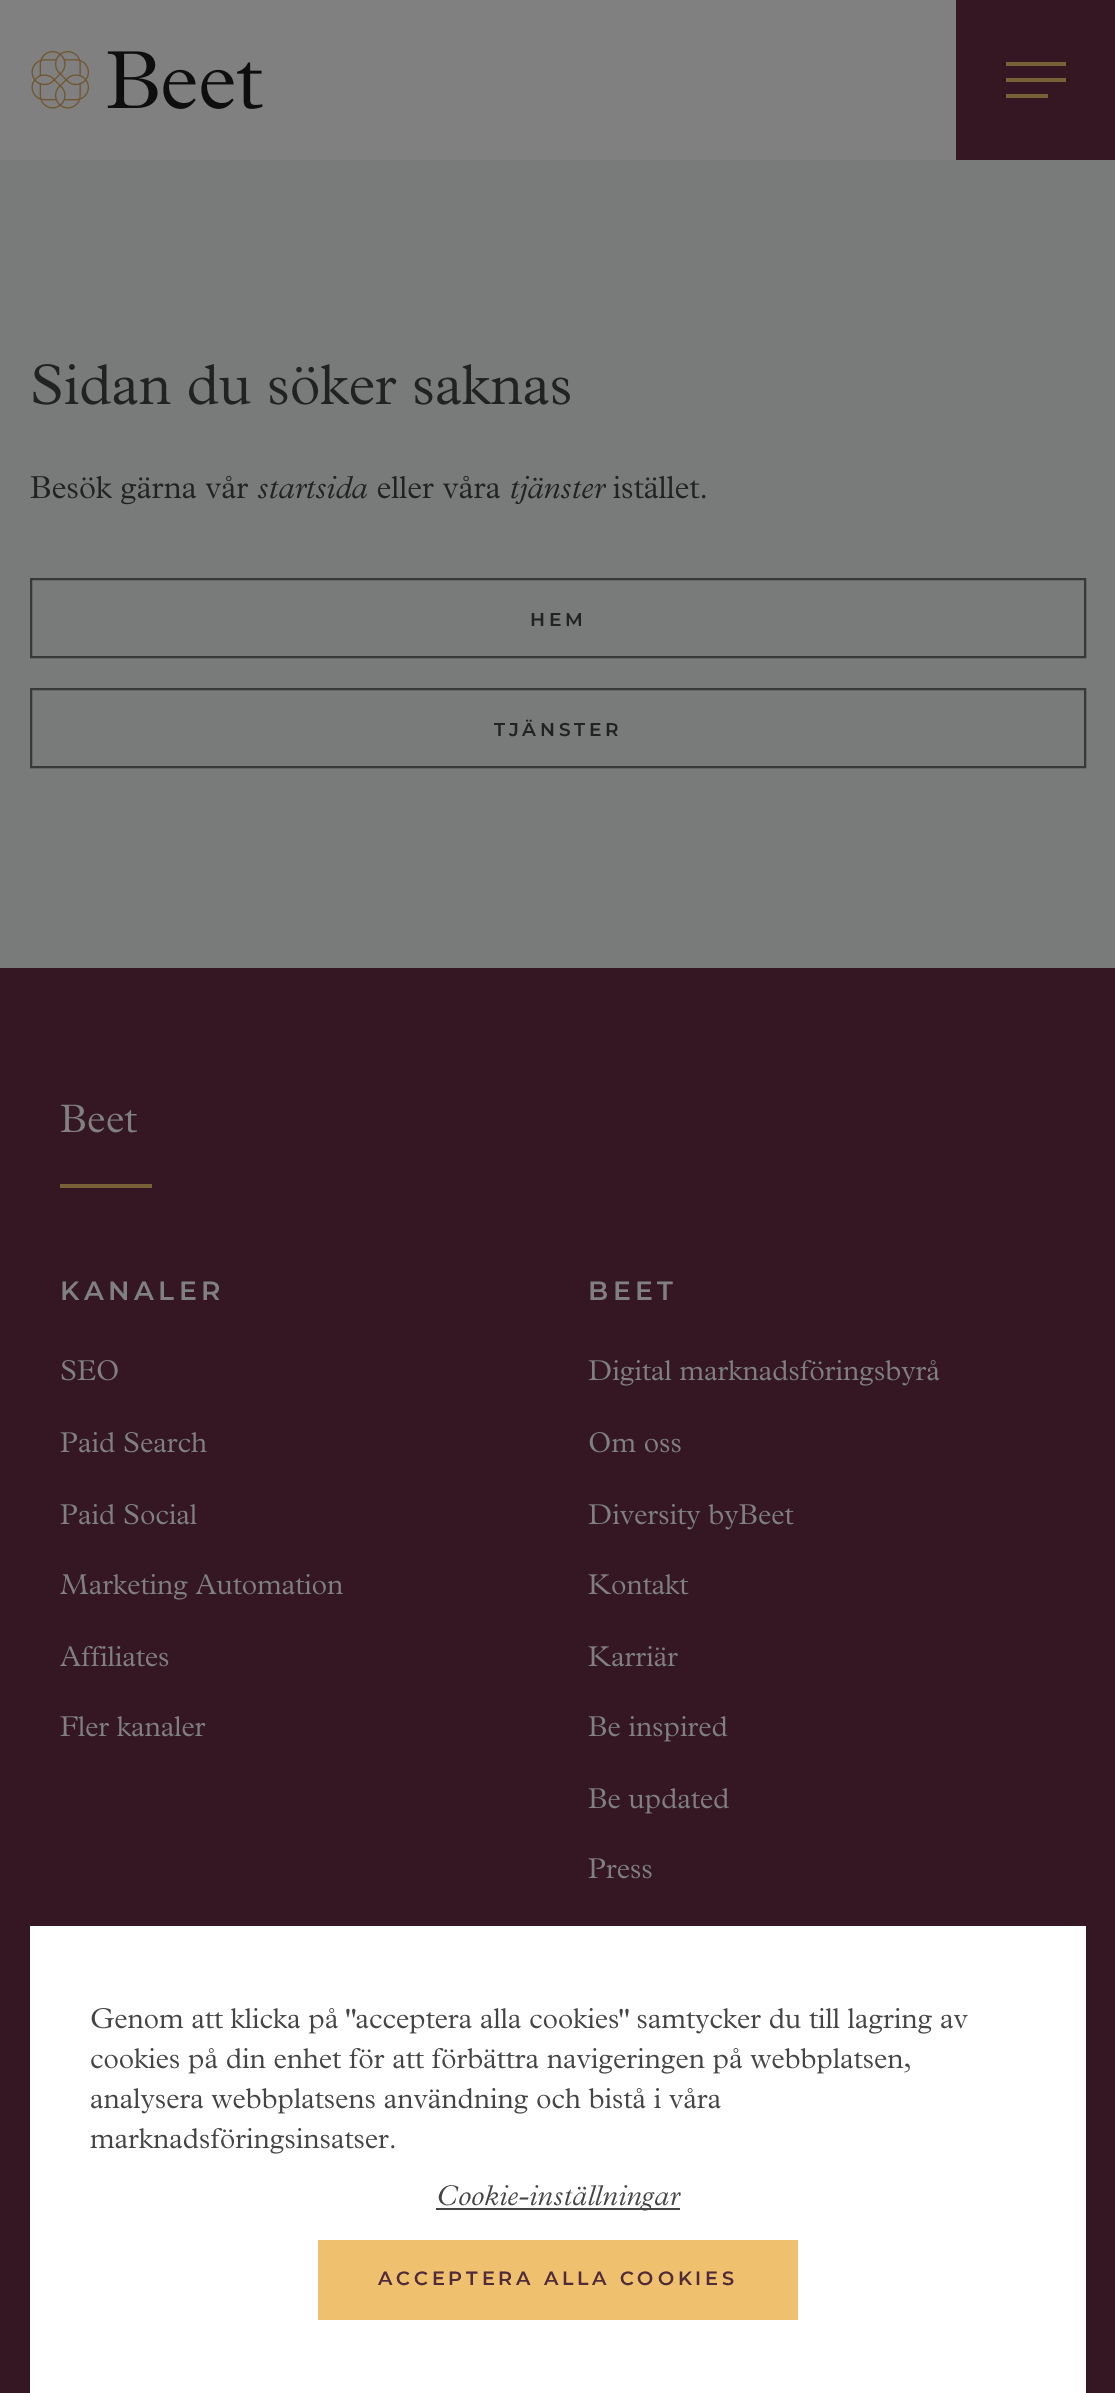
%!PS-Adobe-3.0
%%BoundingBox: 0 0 1115 2393
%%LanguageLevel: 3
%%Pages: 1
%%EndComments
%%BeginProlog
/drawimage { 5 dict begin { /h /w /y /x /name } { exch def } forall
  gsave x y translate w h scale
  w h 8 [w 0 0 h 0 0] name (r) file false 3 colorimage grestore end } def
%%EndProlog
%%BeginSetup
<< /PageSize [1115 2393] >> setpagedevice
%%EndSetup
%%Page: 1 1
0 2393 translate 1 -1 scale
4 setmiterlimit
0.475 0.482 0.482 setrgbcolor
0 0 1115 2393 rectfill
0.502 setgray
0 0 956 160 rectfill
(images/1.raw) 31 51 232 58 drawimage
0.204 0.09 0.137 setrgbcolor
956 0 159 160 rectfill
0.471 0.376 0.216 setrgbcolor
1006 62 60 4 rectfill
1006 78 60 4 rectfill
1006 94 42 4 rectfill
(images/2.raw) 33 364 537 41 drawimage
(images/3.raw) 30 475 219 30 drawimage
(images/4.raw) 377 475 123 24 drawimage
(images/5.raw) 613 475 93 24 drawimage
0.22 setgray
2 setlinewidth
31 579 1054 78 rectstroke
31 689 1054 78 rectstroke
0.204 0.09 0.137 setrgbcolor
0 968 1115 1425 rectfill
(images/6.raw) 61 1104 44 29 drawimage
(images/7.raw) 107 1110 30 23 drawimage
0.471 0.376 0.216 setrgbcolor
60 1184 92 4 rectfill
(images/8.raw) 61 1360 57 21 drawimage
(images/9.raw) 60 1432 147 21 drawimage
(images/10.raw) 60 1504 137 21 drawimage
(images/11.raw) 60 1574 283 26 drawimage
(images/12.raw) 60 1646 109 21 drawimage
(images/13.raw) 60 1716 146 21 drawimage
(images/14.raw) 588 1360 352 26 drawimage
(images/15.raw) 589 1432 92 21 drawimage
(images/16.raw) 588 1504 206 26 drawimage
(images/17.raw) 588 1574 101 21 drawimage
(images/18.raw) 588 1646 90 21 drawimage
(images/19.raw) 588 1716 140 26 drawimage
(images/20.raw) 588 1788 141 26 drawimage
(images/21.raw) 588 1858 64 21 drawimage
1 setgray
30 1926 1056 467 rectfill
(images/22.raw) 91 2008 877 26 drawimage
(images/23.raw) 91 2048 819 26 drawimage
(images/24.raw) 91 2088 630 26 drawimage
(images/25.raw) 90 2128 305 26 drawimage
0.267 setgray
436 2208 244 2 rectfill
0.937 0.753 0.431 setrgbcolor
318 2240 480 80 rectfill
/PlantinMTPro-LightItalic [32 0 0 -32 0 0] selectfont
0.133 setgray
257 498 moveto (startsida) show
509 498 moveto (tjänster) show
/Montserrat-SemiBold [18.5 0 0 -18.5 0 0] selectfont
530 626 moveto 3.75 0 (HEM) ashow
494 736 moveto 3.75 0 (TJÄNSTER) ashow
/Montserrat-SemiBold [26.5 0 0 -26.5 0 0] selectfont
0.502 setgray
60 1300 moveto 4.5 0 (KANALER) ashow
588 1300 moveto 4.5 0 (BEET) ashow
/PlantinMTPro-LightItalic [28.75 0 0 -28.75 0 0] selectfont
0.267 setgray
436 2205 moveto 0.25 0 (Cookie-inställningar) ashow
/Montserrat-SemiBold [19.25 0 0 -19.25 0 0] selectfont
0.314 0.169 0.227 setrgbcolor
378 2285 moveto 3.8 0 (ACCEPTERA ALLA COOKIES) ashow
showpage
%%EOF
